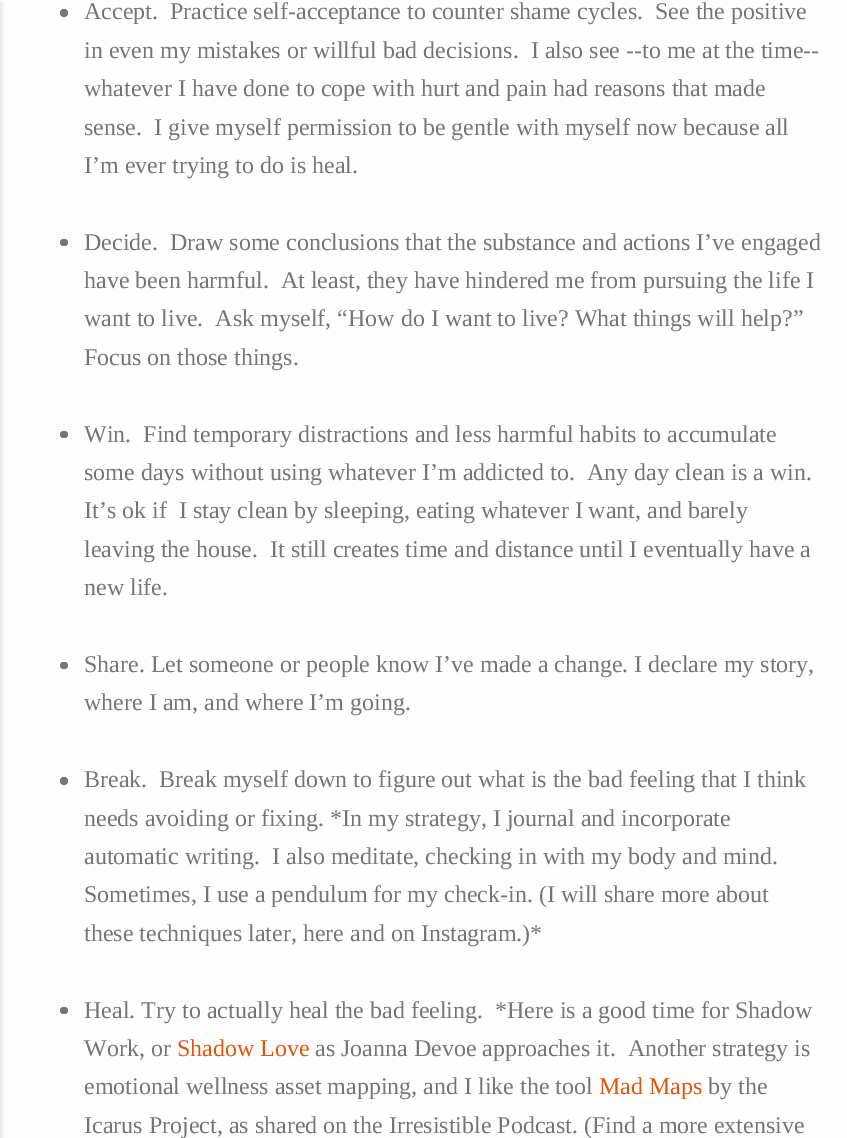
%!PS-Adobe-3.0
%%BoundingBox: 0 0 847 1138
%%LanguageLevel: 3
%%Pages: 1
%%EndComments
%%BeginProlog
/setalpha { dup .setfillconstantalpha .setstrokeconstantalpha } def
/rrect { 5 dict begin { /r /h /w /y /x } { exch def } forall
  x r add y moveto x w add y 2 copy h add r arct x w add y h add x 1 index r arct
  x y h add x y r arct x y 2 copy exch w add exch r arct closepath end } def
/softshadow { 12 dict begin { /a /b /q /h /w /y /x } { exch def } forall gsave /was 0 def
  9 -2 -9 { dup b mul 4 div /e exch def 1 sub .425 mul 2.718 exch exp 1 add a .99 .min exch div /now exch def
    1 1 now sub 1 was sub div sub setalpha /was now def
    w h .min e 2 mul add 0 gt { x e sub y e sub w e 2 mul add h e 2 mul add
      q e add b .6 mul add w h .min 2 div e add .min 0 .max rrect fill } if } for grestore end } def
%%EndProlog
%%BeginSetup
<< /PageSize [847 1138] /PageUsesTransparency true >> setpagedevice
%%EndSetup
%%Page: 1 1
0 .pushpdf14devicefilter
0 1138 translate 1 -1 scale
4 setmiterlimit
1 0.996 0.996 setrgbcolor
0 0 847 1138 rectfill
0 setgray
-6 2 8 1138 0 2 0.1 softshadow
0.459 setgray
newpath 64 13 4 0 360 arc closepath fill
60 239 8 7 3.5 rrect fill
60 431 8 7 3.5 rrect fill
60 662 8 7 3.5 rrect fill
newpath 64 781 4 0 360 arc closepath fill
60 1007 8 7 3.5 rrect fill
/LiberationSerif-Regular [24 0 0 -24 0 0] selectfont
84 19 moveto (Accept.  Practice self-acceptance to counter shame cycles.  See the positive) show
84 58 moveto (in even my mistakes or willful bad decisions.  I also see --to me at the time--) show
84 96 moveto (whatever I have done to cope with hurt and pain had reasons that made) show
84 135 moveto (sense.  I give myself permission to be gentle with myself now because all) show
84 173 moveto (I’m ever trying to do is heal.) show
84 250 moveto (Decide.  Draw some conclusions that the substance and actions I’ve engaged) show
84 288 moveto (have been harmful.  At least, they have hindered me from pursuing the life I) show
84 326 moveto (want to live.  Ask myself, “How do I want to live? What things will help?”) show
84 365 moveto (Focus on those things.) show
84 442 moveto (Win.  Find temporary distractions and less harmful habits to accumulate) show
84 480 moveto (some days without using whatever I’m addicted to.  Any day clean is a win.) show
84 518 moveto (It’s ok if  I stay clean by sleeping, eating whatever I want, and barely) show
84 557 moveto (leaving the house.  It still creates time and distance until I eventually have a) show
84 595 moveto (new life.) show
84 672 moveto (Share. Let someone or people know I’ve made a change. I declare my story,) show
84 710 moveto (where I am, and where I’m going.) show
84 787 moveto (Break.  Break myself down to figure out what is the bad feeling that I think) show
84 826 moveto (needs avoiding or fixing. *In my strategy, I journal and incorporate) show
84 864 moveto (automatic writing.  I also meditate, checking in with my body and mind.) show
84 902 moveto (Sometimes, I use a pendulum for my check-in. \(I will share more about) show
84 941 moveto (these techniques later, here and on Instagram.\)*) show
84 1018 moveto (Heal. Try to actually heal the bad feeling.  *Here is a good time for Shadow) show
84 1056 moveto (Work, or) show
0.867 0.337 0.063 setrgbcolor
177 1056 moveto (Shadow Love) show
0.459 setgray
315 1056 moveto (as Joanna Devoe approaches it.  Another strategy is) show
84 1094 moveto (emotional wellness asset mapping, and I like the tool) show
0.867 0.337 0.063 setrgbcolor
599 1094 moveto (Mad Maps) show
0.459 setgray
708 1094 moveto (by the) show
84 1133 moveto (Icarus Project, as shared on the Irresistible Podcast. \(Find a more extensive) show
.poppdf14devicefilter showpage
%%EOF
